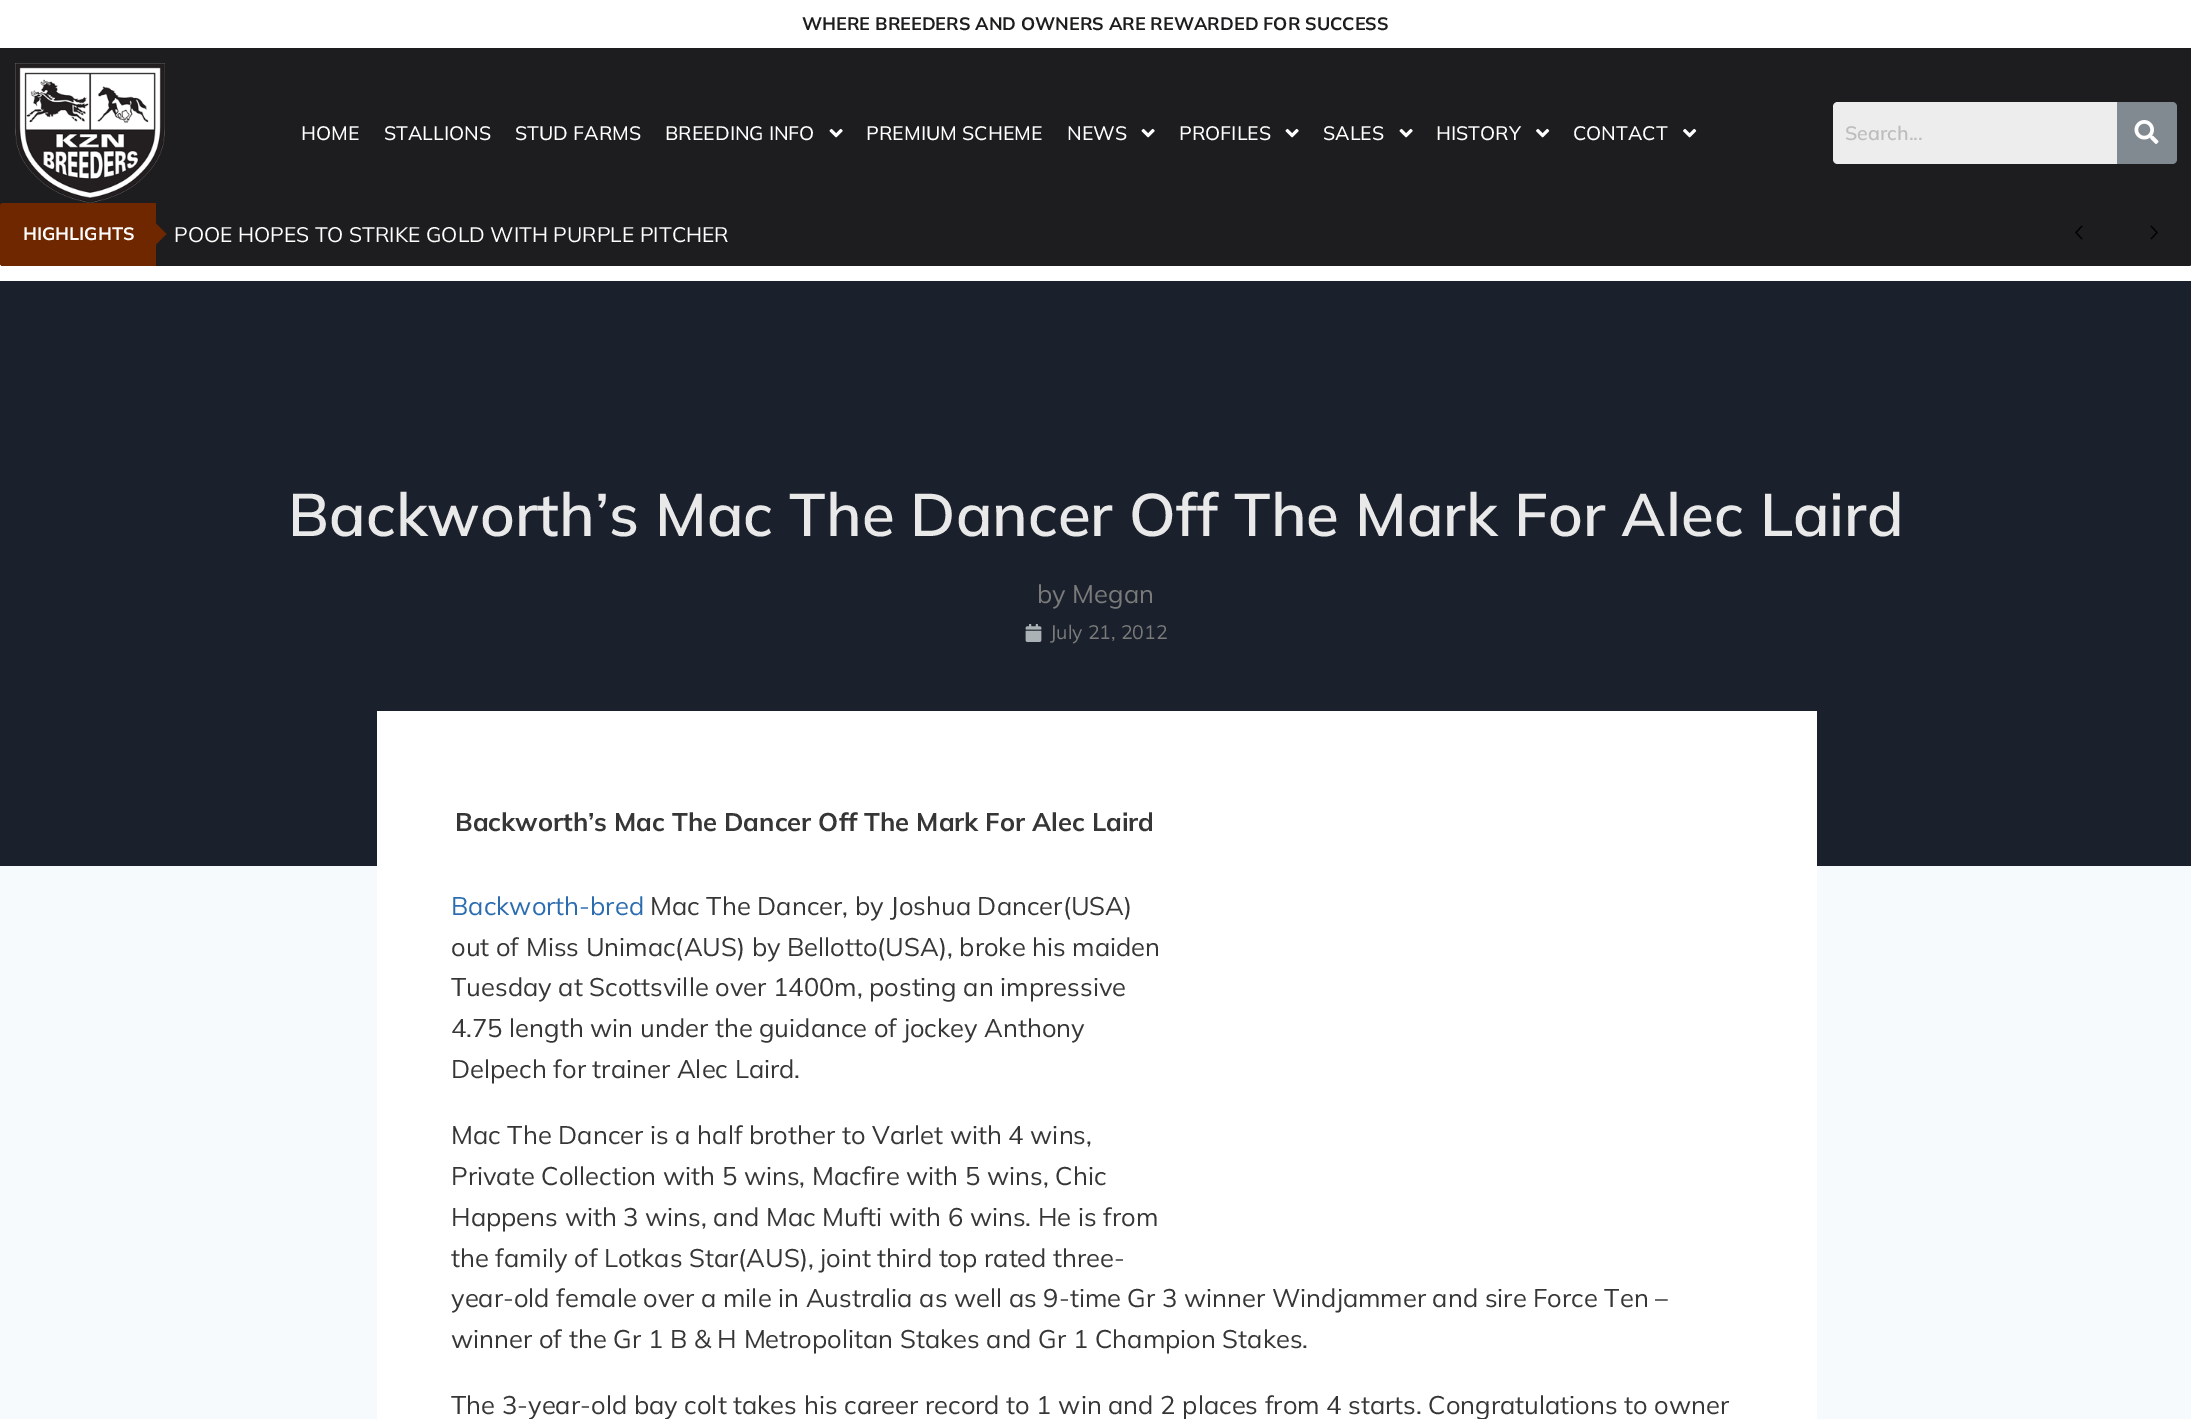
%!PS-Adobe-3.0
%%BoundingBox: 0 0 2191 1419
%%LanguageLevel: 3
%%Pages: 1
%%EndComments
%%BeginProlog
/rrect { 5 dict begin { /r /h /w /y /x } { exch def } forall
  x r add y moveto x w add y 2 copy h add r arct x w add y h add x 1 index r arct
  x y h add x y r arct x y 2 copy exch w add exch r arct closepath end } def
/drawimage { 5 dict begin { /h /w /y /x /name } { exch def } forall
  gsave x y translate w h scale
  w h 8 [w 0 0 h 0 0] name (r) file false 3 colorimage grestore end } def
%%EndProlog
%%BeginSetup
<< /PageSize [2191 1419] >> setpagedevice
%%EndSetup
%%Page: 1 1
0 1419 translate 1 -1 scale
4 setmiterlimit
0.969 0.98 0.988 setrgbcolor
0 0 2191 1419 rectfill
1 setgray
0 0 2191 281 rectfill
0.114 0.114 0.122 setrgbcolor
0 48 2191 158 rectfill
(images/1.raw) 15 63 150 140 drawimage
(images/2.raw) 829 128 14 10 drawimage
(images/2.raw) 1141 128 14 10 drawimage
(images/2.raw) 1285 128 14 10 drawimage
(images/2.raw) 1399 128 14 10 drawimage
(images/3.raw) 1536 128 14 10 drawimage
(images/3.raw) 1683 128 14 10 drawimage
0.929 setgray
newpath 1838 102 moveto 2117 102 lineto 2117 164 lineto 1838 164 lineto 1835 164 1833 162 1833 159 curveto 1833 107 lineto 1833 104 1835 102 1838 102 curveto closepath fill
0.506 0.541 0.569 setrgbcolor
newpath 2117 102 moveto 2172 102 lineto 2175 102 2177 104 2177 107 curveto 2177 159 lineto 2177 162 2175 164 2172 164 curveto 2117 164 lineto closepath fill
(images/4.raw) 2134 120 25 24 drawimage
0.114 0.114 0.122 setrgbcolor
0 203 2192 63 3 rrect fill
0.435 0.153 0 setrgbcolor
newpath 3 203 moveto 156 203 lineto 156 266 lineto 3 266 lineto 1.5 266 0 264.5 0 263 curveto 0 206 lineto 0 204.5 1.5 203 3 203 curveto closepath fill
newpath 154.5 246 moveto 154.5 222 lineto 166.5 234 lineto closepath fill
0 setgray
1.1 setlinewidth
newpath 2082 239 moveto 2076 232.5 lineto 2082 226 lineto stroke
newpath 2151 226 moveto 2157 232.5 lineto 2151 239 lineto stroke
0.102 0.125 0.173 setrgbcolor
0 281 2191 585 rectfill
(images/5.raw) 1025 624 17 18 drawimage
1 setgray
377 711 1440 708 rectfill
/Mulish-Bold [18 0 0 -18 0 0] selectfont
0.114 0.114 0.122 setrgbcolor
802 30 moveto (WHERE BREEDERS AND OWNERS ARE REWARDED FOR SUCCESS) show
/Mulish-Medium [19.5 0 0 -19.5 0 0] selectfont
1 setgray
301 140 moveto (HOME) show
384 140 moveto (STALLIONS) show
515 140 moveto (STUD FARMS) show
665 140 moveto (BREEDING INFO) show
866 140 moveto (PREMIUM SCHEME) show
1067 140 moveto (NEWS) show
1179 140 moveto (PROFILES) show
1323 140 moveto (SALES) show
1436 140 moveto (HISTORY) show
1573 140 moveto (CONTACT) show
/Mulish-SemiBold [19.5 0 0 -19.5 0 0] selectfont
0.741 setgray
1845 140 moveto (Search...) show
/Mulish-Bold [18 0 0 -18 0 0] selectfont
1 setgray
23 240 moveto (HIGHLIGHTS) show
/Mulish-Regular [21 0 0 -21 0 0] selectfont
174 242 moveto (POOE HOPES TO STRIKE GOLD WITH PURPLE PITCHER) show
/Mulish-SemiBold [60 0 0 -60 0 0] selectfont
0.914 setgray
288 536 moveto (Backworth’s Mac The Dancer Off The Mark For Alec Laird) show
/Mulish-Regular [25.5 0 0 -25.5 0 0] selectfont
0.478 setgray
1037 603 moveto (by Megan) show
/Mulish-Regular [19.5 0 0 -19.5 0 0] selectfont
1050 639 moveto (July 21, 2012) show
/Mulish-Bold [25.5 0 0 -25.5 0 0] selectfont
0.212 setgray
455 831 moveto (Backworth’s Mac The Dancer Off The Mark For Alec Laird) show
/Mulish-Regular [25.5 0 0 -25.5 0 0] selectfont
0.169 0.424 0.69 setrgbcolor
451 915 moveto (Backworth-bred) show
0.212 setgray
650 915 moveto (Mac The Dancer, by Joshua Dancer\(USA\)) show
451 956 moveto (out of Miss Unimac\(AUS\) by Bellotto\(USA\), broke his maiden) show
451 996 moveto (Tuesday at Scottsville over 1400m, posting an impressive) show
451 1037 moveto (4.75 length win under the guidance of jockey Anthony) show
451 1078 moveto (Delpech for trainer Alec Laird.) show
451 1144 moveto (Mac The Dancer is a half brother to Varlet with 4 wins,) show
451 1185 moveto (Private Collection with 5 wins, Macfire with 5 wins, Chic) show
451 1226 moveto (Happens with 3 wins, and Mac Mufti with 6 wins. He is from) show
451 1267 moveto (the family of Lotkas Star\(AUS\), joint third top rated three-) show
451 1307 moveto (year-old female over a mile in Australia as well as 9-time Gr 3 winner Windjammer and sire Force Ten –) show
451 1348 moveto (winner of the Gr 1 B & H Metropolitan Stakes and Gr 1 Champion Stakes.) show
451 1414 moveto (The 3-year-old bay colt takes his career record to 1 win and 2 places from 4 starts. Congratulations to owner) show
showpage
%%EOF
